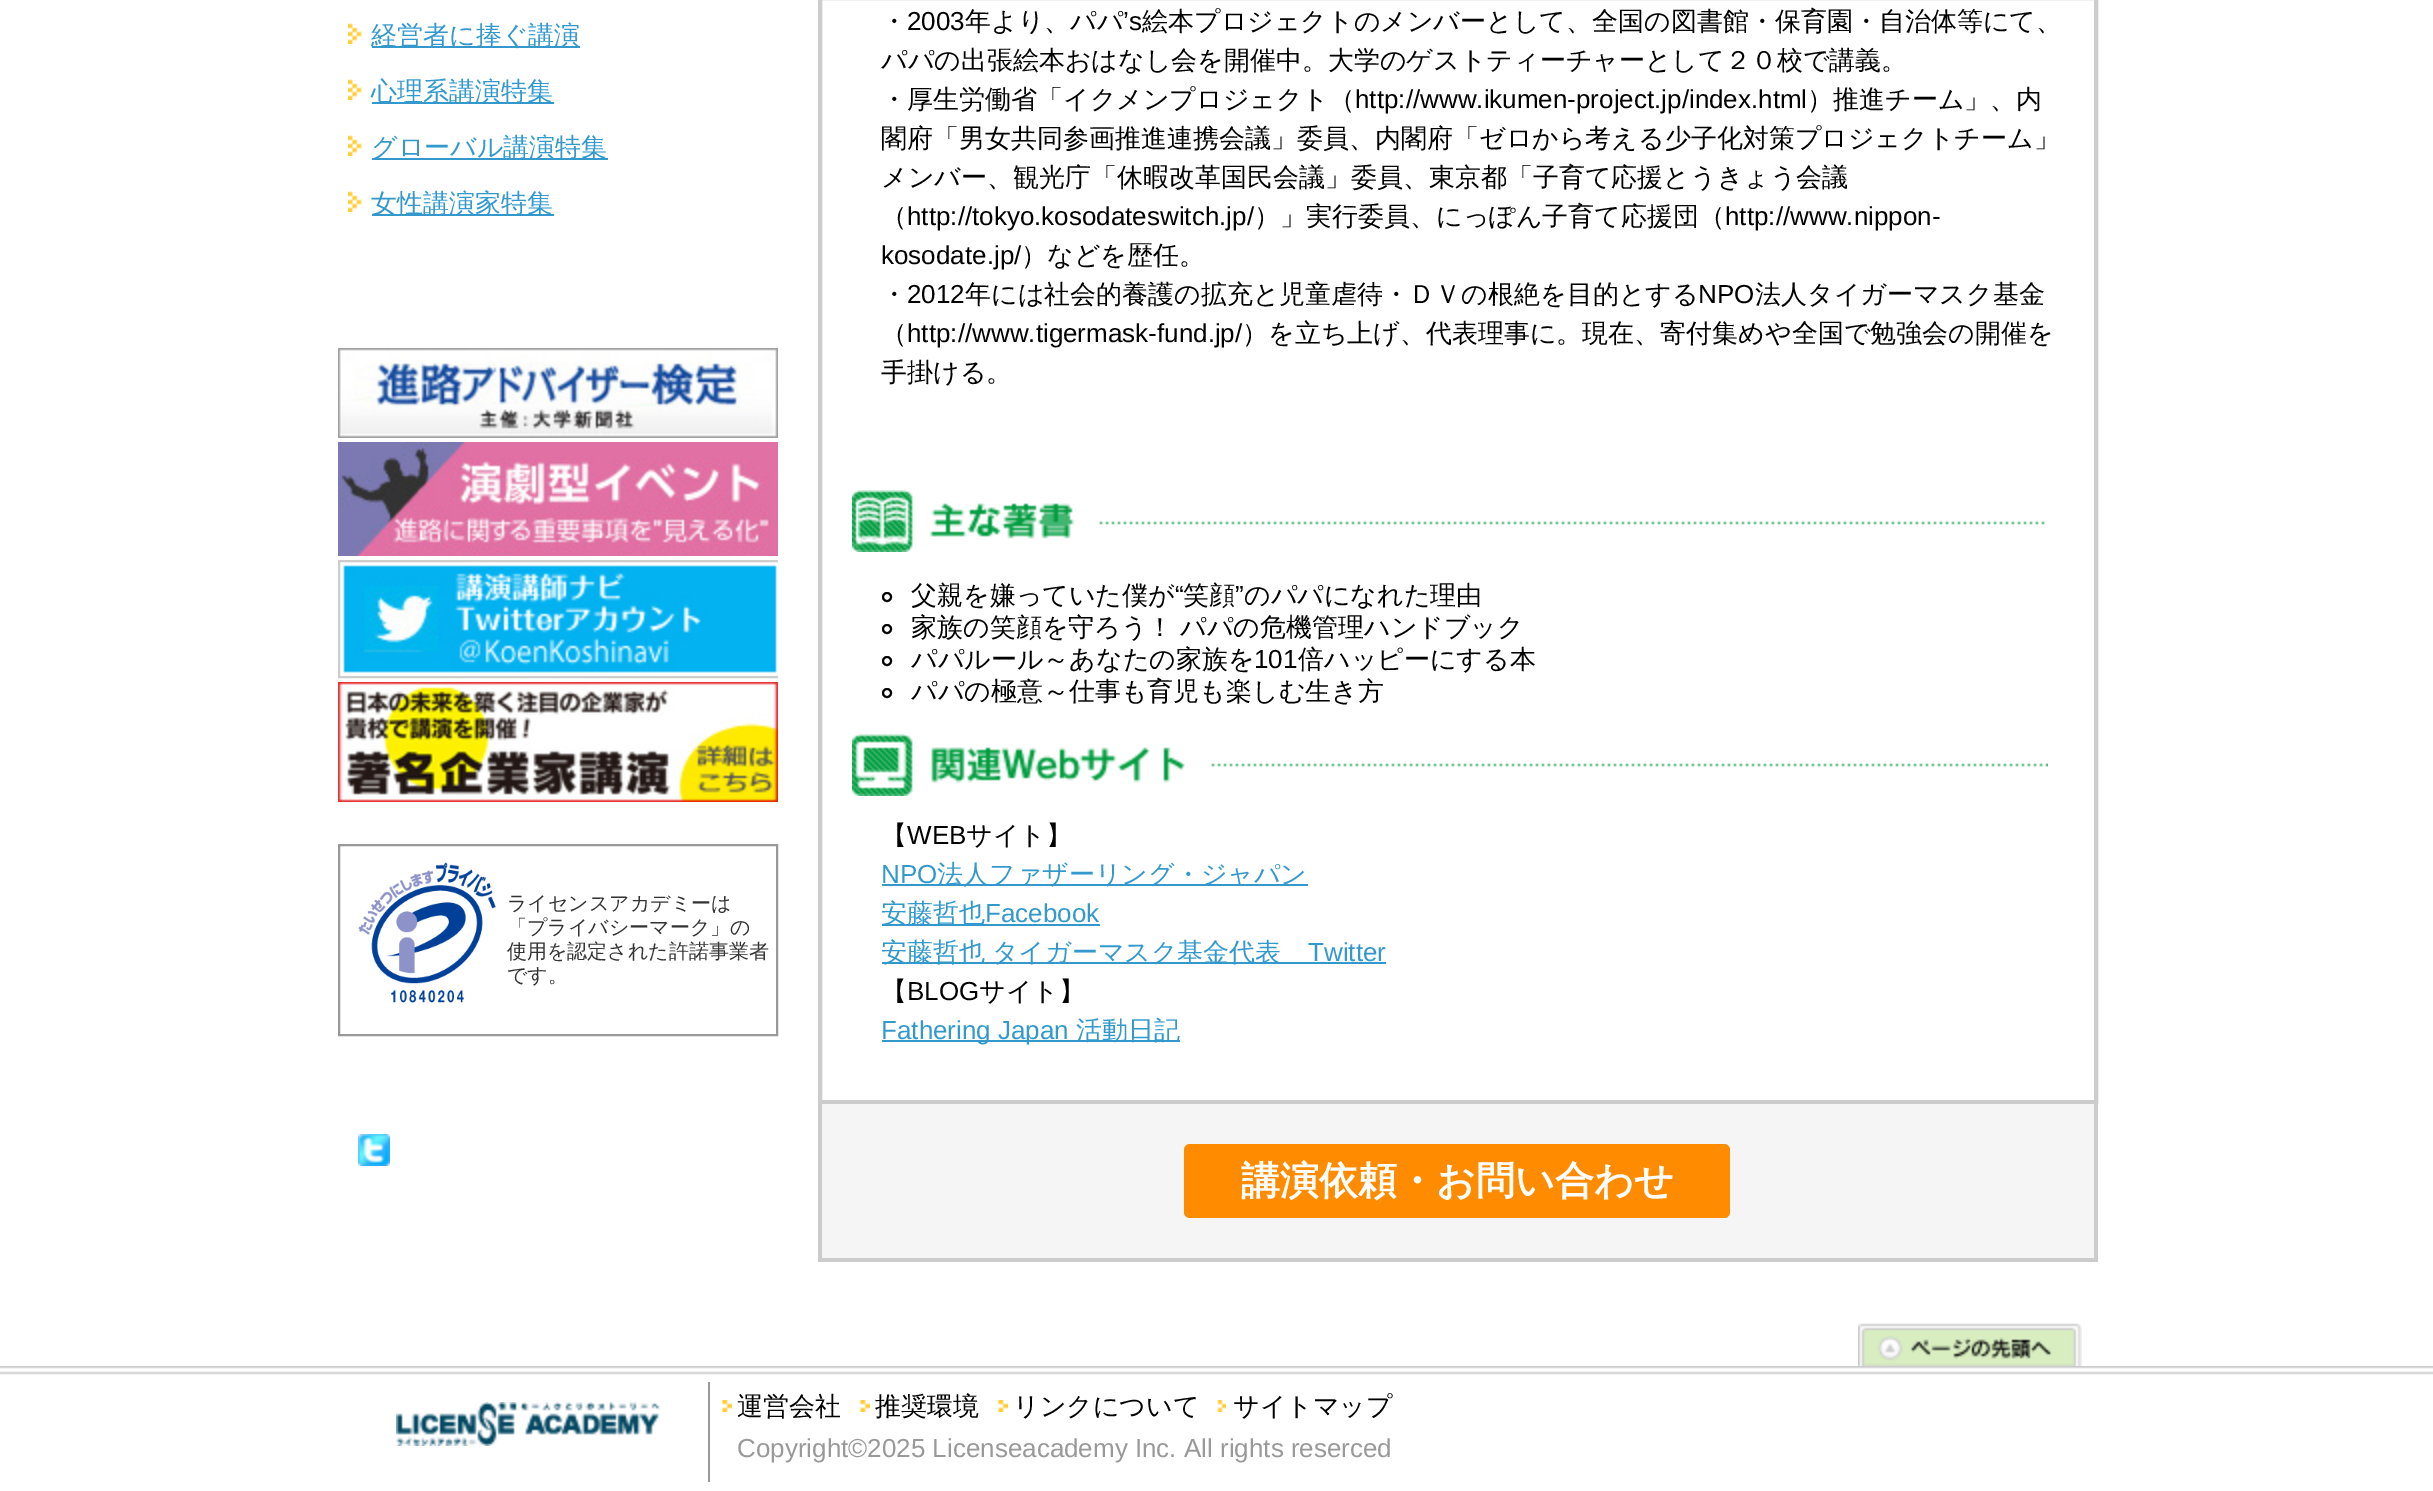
%!PS-Adobe-3.0
%%BoundingBox: 0 0 2433 1491
%%LanguageLevel: 3
%%Pages: 1
%%EndComments
%%BeginProlog
/rrect { 5 dict begin { /r /h /w /y /x } { exch def } forall
  x r add y moveto x w add y 2 copy h add r arct x w add y h add x 1 index r arct
  x y h add x y r arct x y 2 copy exch w add exch r arct closepath end } def
/drawimage { 5 dict begin { /h /w /y /x /name } { exch def } forall
  gsave x y translate w h scale
  w h 8 [w 0 0 h 0 0] name (r) file false 3 colorimage grestore end } def
%%EndProlog
%%BeginSetup
<< /PageSize [2433 1491] >> setpagedevice
%%EndSetup
%%Page: 1 1
0 1491 translate 1 -1 scale
4 setmiterlimit
1 setgray
0 0 2433 1491 rectfill
(images/1.raw) 348 23 14 21 drawimage
0.2 0.6 0.8 setrgbcolor
372 46 208 2 rectfill
(images/1.raw) 348 79 14 21 drawimage
372 102 182 2 rectfill
(images/1.raw) 348 135 14 21 drawimage
372 158 236 2 rectfill
(images/1.raw) 348 191 14 21 drawimage
372 214 182 2 rectfill
(images/2.raw) 338 348 440 90 drawimage
(images/3.raw) 338 442 440 114 drawimage
gsave
338 0 440 1186 rectclip
0.8 setgray
2 setlinewidth
339 561 442 116 rectstroke
grestore
(images/4.raw) 343 565 434 108 drawimage
(images/5.raw) 338 682 440 120 drawimage
0.6 setgray
2 setlinewidth
339 845 438 190 rectstroke
(images/6.raw) 358 862 138 141 drawimage
(images/7.raw) 358 1134 32 32 drawimage
0.8 setgray
4 setlinewidth
820 -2 1276 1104 rectstroke
(images/8.raw) 852 490 1193 62 drawimage
0 setgray
2 setlinewidth
newpath 887 597 4 0 360 arc closepath stroke
newpath 887 629 4 0 360 arc closepath stroke
newpath 887 661 4 0 360 arc closepath stroke
newpath 887 693 4 0 360 arc closepath stroke
(images/9.raw) 852 734 1196 62 drawimage
0.2 0.6 0.8 setrgbcolor
882 884 426 2 rectfill
882 924 218 2 rectfill
882 962 504 2 rectfill
882 1040 298 2 rectfill
0.961 setgray
822 1104 1272 154 rectfill
0.8 setgray
2094 1104 4 158 rectfill
818 1258 1280 4 rectfill
818 1104 4 158 rectfill
1 0.549 0 setrgbcolor
1184 1144 546 74 6 rrect fill
(images/10.raw) 0 1366 2433 9 drawimage
(images/11.raw) 1858 1323 224 43 drawimage
0.6 setgray
708 1382 2 100 rectfill
(images/12.raw) 396 1402 264 44 drawimage
(images/13.raw) 721 1400 11 12 drawimage
(images/14.raw) 859 1400 11 12 drawimage
(images/14.raw) 997 1400 11 12 drawimage
(images/15.raw) 1217 1400 9 12 drawimage
/WenQuanYiZenHei-Medium [26 0 0 -26 0 0] selectfont
0.2 0.6 0.8 setrgbcolor
371 44 moveto (経営者に捧ぐ講演) show
371 100 moveto (心理系講演特集) show
371 156 moveto (グローバル講演特集) show
371 212 moveto (女性講演家特集) show
/WenQuanYiZenHei-Medium [20 0 0 -20 0 0] selectfont
0.2 setgray
507 910 moveto (ライセンスアカデミーは) show
507 934 moveto (「プライバシーマーク」の) show
507 958 moveto (使用を認定された許諾事業者) show
507 982 moveto (です。) show
/WenQuanYiZenHei-Medium [26 0 0 -26 0 0] selectfont
0 setgray
881 30 moveto (・) show
/LiberationSans-Regular [26 0 0 -26 0 0] selectfont
907 30 moveto (2003) show
/WenQuanYiZenHei-Medium [26 0 0 -26 0 0] selectfont
965 30 moveto (年より、パパ) show
/LiberationSans-Regular [26 0 0 -26 0 0] selectfont
1123 30 moveto (’s) show
/WenQuanYiZenHei-Medium [26 0 0 -26 0 0] selectfont
1142 30 moveto (絵本プロジェクトのメンバーとして、全国の図書館・保育園・自治体等にて、) show
881 69 moveto (パパの出張絵本おはなし会を開催中。大学のゲストティーチャーとして２０校で講義。) show
881 108 moveto (・厚生労働省「イクメンプロジェクト（) show
/LiberationSans-Regular [26 0 0 -26 0 0] selectfont
1355 108 moveto (http://www.ikumen-project.jp/index.html) show
/WenQuanYiZenHei-Medium [26 0 0 -26 0 0] selectfont
1807 108 moveto (）推進チーム」、内) show
881 147 moveto (閣府「男女共同参画推進連携会議」委員、内閣府「ゼロから考える少子化対策プロジェクトチーム」) show
881 186 moveto (メンバー、観光庁「休暇改革国民会議」委員、東京都「子育て応援とうきょう会議) show
881 225 moveto (（) show
/LiberationSans-Regular [26 0 0 -26 0 0] selectfont
907 225 moveto (http://tokyo.kosodateswitch.jp/) show
/WenQuanYiZenHei-Medium [26 0 0 -26 0 0] selectfont
1254 225 moveto (）」実行委員、にっぽん子育て応援団（) show
/LiberationSans-Regular [26 0 0 -26 0 0] selectfont
1725 225 moveto (http://www.nippon-) show
881 264 moveto (kosodate.jp/) show
/WenQuanYiZenHei-Medium [26 0 0 -26 0 0] selectfont
1021 264 moveto (）などを歴任。) show
881 303 moveto (・) show
/LiberationSans-Regular [26 0 0 -26 0 0] selectfont
907 303 moveto (2012) show
/WenQuanYiZenHei-Medium [26 0 0 -26 0 0] selectfont
965 303 moveto (年には社会的養護の拡充と児童虐待・ＤＶの根絶を目的とする) show
/LiberationSans-Regular [26 0 0 -26 0 0] selectfont
1698 303 moveto (NPO) show
/WenQuanYiZenHei-Medium [26 0 0 -26 0 0] selectfont
1755 303 moveto (法人タイガーマスク基金) show
881 342 moveto (（) show
/LiberationSans-Regular [26 0 0 -26 0 0] selectfont
907 342 moveto (http://www.tigermask-fund.jp/) show
/WenQuanYiZenHei-Medium [26 0 0 -26 0 0] selectfont
1242 342 moveto (）を立ち上げ、代表理事に。現在、寄付集めや全国で勉強会の開催を) show
881 381 moveto (手掛ける。) show
911 604 moveto (父親を嫌っていた僕が) show
/LiberationSans-Regular [26 0 0 -26 0 0] selectfont
1175 604 moveto (“) show
/WenQuanYiZenHei-Medium [26 0 0 -26 0 0] selectfont
1183 604 moveto (笑顔) show
/LiberationSans-Regular [26 0 0 -26 0 0] selectfont
1235 604 moveto (”) show
/WenQuanYiZenHei-Medium [26 0 0 -26 0 0] selectfont
1244 604 moveto (のパパになれた理由) show
911 636 moveto -1 0 32 (家族の笑顔を守ろう！ パパの危機管理ハンドブック) widthshow
911 668 moveto (パパルール～あなたの家族を) show
/LiberationSans-Regular [26 0 0 -26 0 0] selectfont
1254 668 moveto (101) show
/WenQuanYiZenHei-Medium [26 0 0 -26 0 0] selectfont
1298 668 moveto (倍ハッピーにする本) show
911 700 moveto (パパの極意～仕事も育児も楽しむ生き方) show
881 844 moveto (【) show
/LiberationSans-Regular [26 0 0 -26 0 0] selectfont
907 844 moveto (WEB) show
/WenQuanYiZenHei-Medium [26 0 0 -26 0 0] selectfont
966 844 moveto (サイト】) show
/LiberationSans-Regular [26 0 0 -26 0 0] selectfont
0.2 0.6 0.8 setrgbcolor
881 883 moveto (NPO) show
/WenQuanYiZenHei-Medium [26 0 0 -26 0 0] selectfont
937 883 moveto (法人ファザーリング・ジャパン) show
881 922 moveto (安藤哲也) show
/LiberationSans-Regular [26 0 0 -26 0 0] selectfont
985 922 moveto (Facebook) show
/WenQuanYiZenHei-Medium [26 0 0 -26 0 0] selectfont
881 961 moveto -1 0 32 (安藤哲也 タイガーマスク基金代表) widthshow
/LiberationSans-Regular [26 0 0 -26 0 0] selectfont
1308 961 moveto (Twitter) show
/WenQuanYiZenHei-Medium [26 0 0 -26 0 0] selectfont
0 setgray
881 1000 moveto (【) show
/LiberationSans-Regular [26 0 0 -26 0 0] selectfont
907 1000 moveto (BLOG) show
/WenQuanYiZenHei-Medium [26 0 0 -26 0 0] selectfont
979 1000 moveto (サイト】) show
/LiberationSans-Regular [26 0 0 -26 0 0] selectfont
0.2 0.6 0.8 setrgbcolor
881 1039 moveto (Fathering Japan) show
/WenQuanYiZenHei-Medium [26 0 0 -26 0 0] selectfont
1076 1039 moveto (活動日記) show
/WenQuanYiZenHei-Bold [39 0 0 -39 0 0] selectfont
1 setgray
1241 1194 moveto (講演依頼・お問い合わせ) show
/WenQuanYiZenHei-Medium [26 0 0 -26 0 0] selectfont
0 setgray
737 1415 moveto (運営会社) show
875 1415 moveto (推奨環境) show
1013 1415 moveto (リンクについて) show
1233 1415 moveto (サイトマップ) show
/LiberationSans-Regular [26 0 0 -26 0 0] selectfont
0.6 setgray
737 1457 moveto (Copyright©2025 Licenseacademy Inc. All rights reserced) show
showpage
%%EOF
